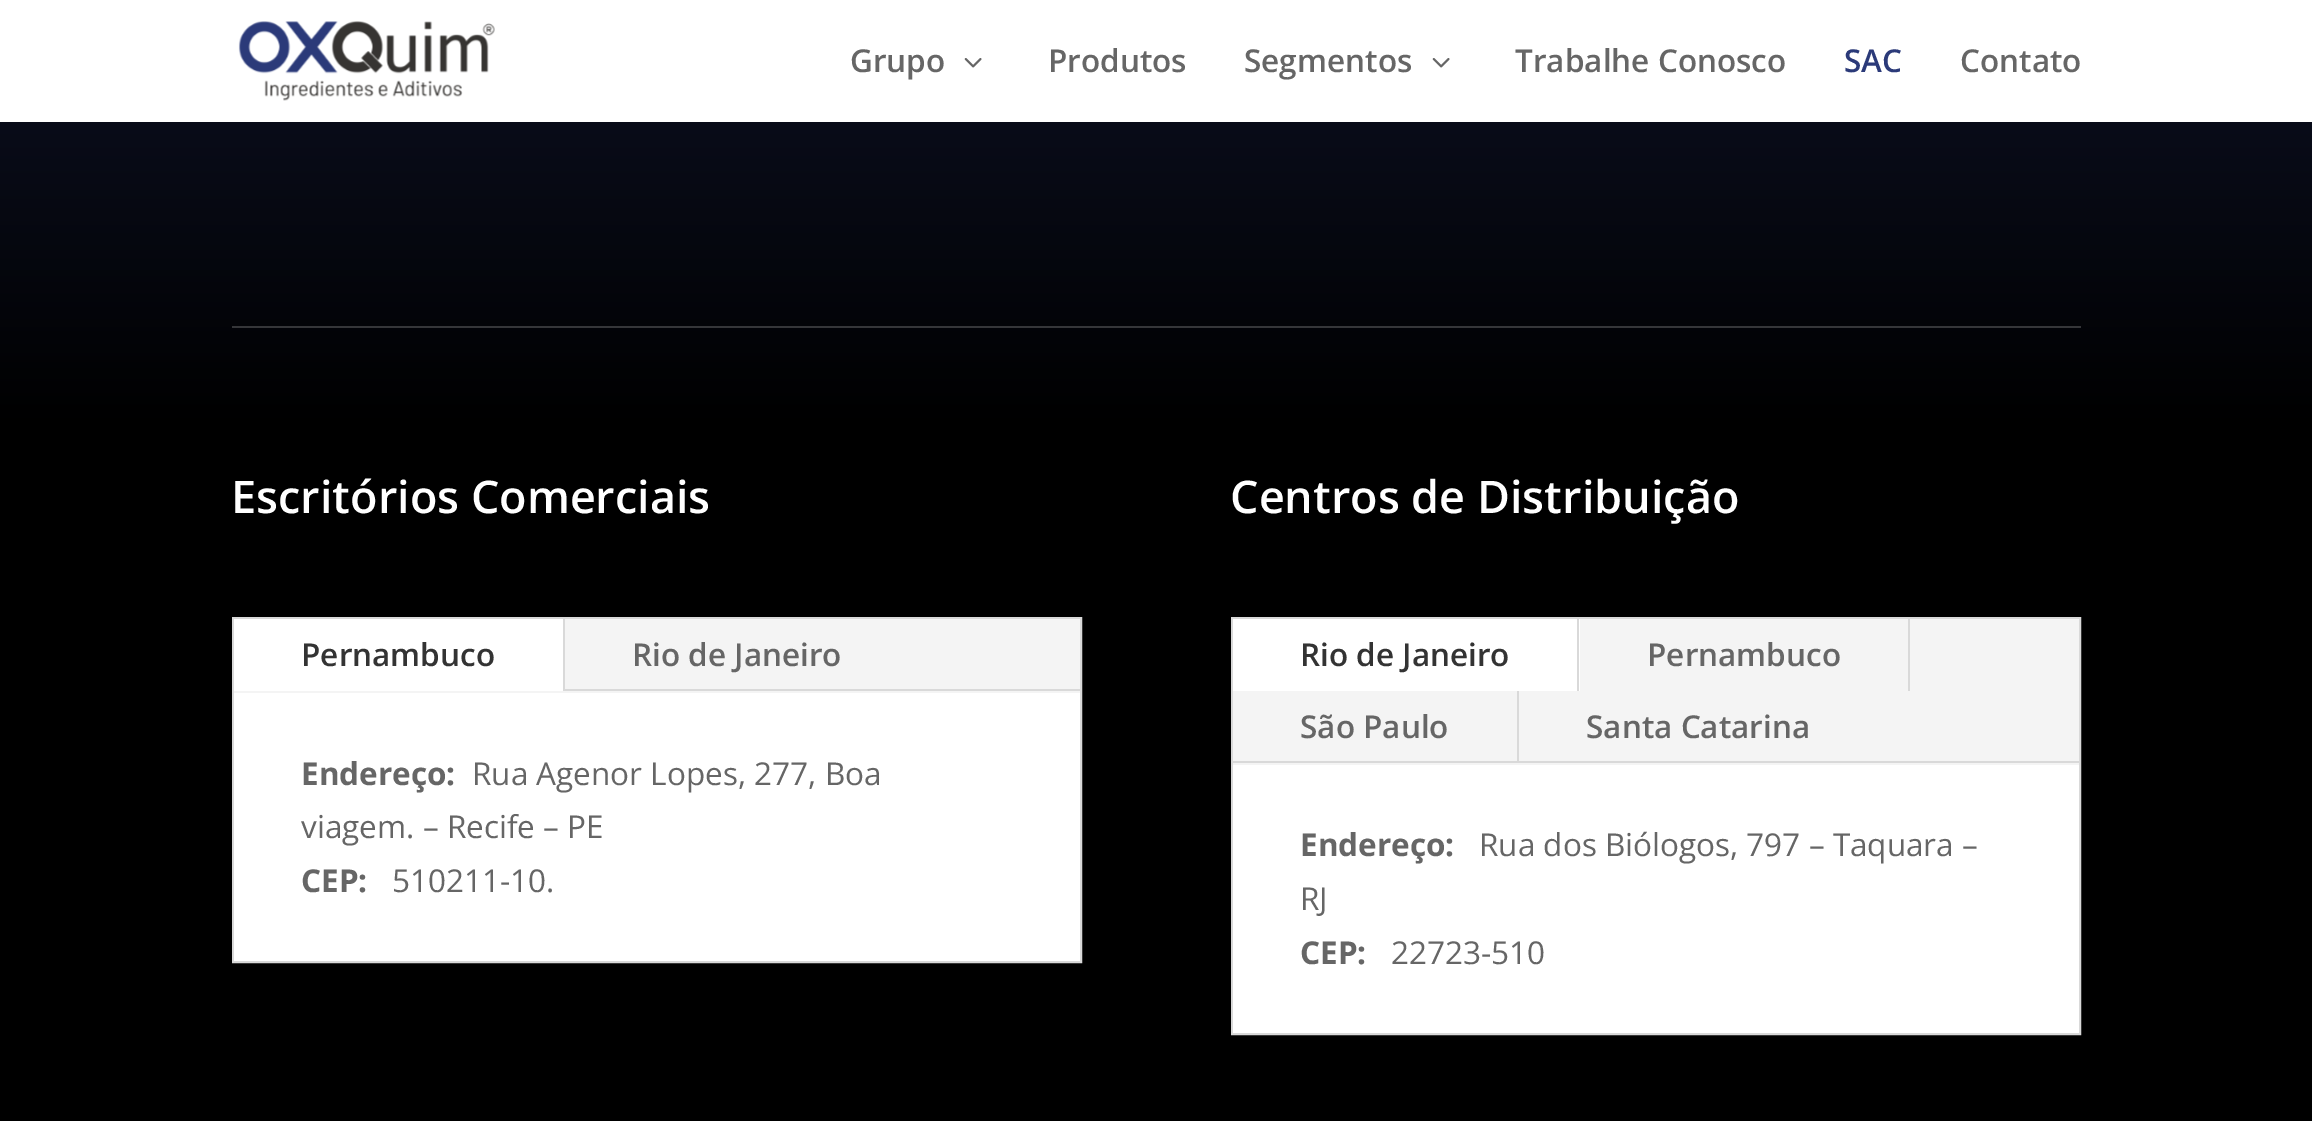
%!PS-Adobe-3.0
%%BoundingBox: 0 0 2312 1121
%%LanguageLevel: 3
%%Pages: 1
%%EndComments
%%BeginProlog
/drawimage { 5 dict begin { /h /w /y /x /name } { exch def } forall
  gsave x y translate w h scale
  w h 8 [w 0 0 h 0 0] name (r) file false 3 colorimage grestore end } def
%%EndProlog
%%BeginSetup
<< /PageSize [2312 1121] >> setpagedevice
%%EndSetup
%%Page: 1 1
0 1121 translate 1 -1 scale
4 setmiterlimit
1 setgray
0 0 2312 1121 rectfill
(images/1.raw) 238 21 257 80 drawimage
(images/2.raw) 964 58 18 10 drawimage
(images/2.raw) 1432 58 18 10 drawimage
gsave newpath 0 122 moveto 2312 122 lineto 2312 430 lineto 0 430 lineto closepath clip newpath
<< /ShadingType 2 /ColorSpace /DeviceRGB /Coords [1157 -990 1157 430] /Extend [true true] /Function << /FunctionType 2 /Domain [0 1] /C0 [0.157 0.224 0.455] /C1 [0 0 0] /N 1 >> >> shfill grestore
0.208 0.212 0.224 setrgbcolor
232 326 1849 2 rectfill
0 setgray
0 430 2312 691 rectfill
0.851 setgray
2 setlinewidth
233 618 848 344 rectstroke
0.957 setgray
234 619 846 74 rectfill
1 setgray
234 619 329 72 rectfill
0.851 setgray
563 619 2 72 rectfill
565 689 515 2 rectfill
1 setgray
234 693 846 268 rectfill
0.851 setgray
1232 618 848 416 rectstroke
0.957 setgray
1233 619 846 146 rectfill
1 setgray
1233 619 347 72 rectfill
0.851 setgray
1577 619 2 72 rectfill
1908 619 2 72 rectfill
1233 761 846 2 rectfill
1517 691 2 72 rectfill
1 setgray
1233 765 846 268 rectfill
/OpenSans-SemiBold [31.5 0 0 -31.5 0 0] selectfont
0.4 setgray
850 72 moveto (Grupo) show
1048 72 moveto (Produtos) show
1244 72 moveto (Segmentos) show
1515 72 moveto (Trabalhe Conosco) show
0.169 0.227 0.475 setrgbcolor
1844 72 moveto (SAC) show
0.4 setgray
1960 72 moveto (Contato) show
/OpenSans-SemiBold [45 0 0 -45 0 0] selectfont
1 setgray
231 513 moveto (Escritórios Comerciais) show
/OpenSans-SemiBold [31.5 0 0 -31.5 0 0] selectfont
0.2 setgray
301 666 moveto (Pernambuco) show
0.4 setgray
632 666 moveto (Rio de Janeiro) show
/OpenSans-Bold [31.5 0 0 -31.5 0 0] selectfont
301 785 moveto (Endereço:) show
/OpenSans-Regular [31.5 0 0 -31.5 0 0] selectfont
472 785 moveto (Rua Agenor Lopes, 277, Boa) show
301 838 moveto (viagem. – Recife – PE) show
/OpenSans-Bold [31.5 0 0 -31.5 0 0] selectfont
301 892 moveto (CEP:) show
/OpenSans-Regular [31.5 0 0 -31.5 0 0] selectfont
392 892 moveto (510211-10.) show
/OpenSans-SemiBold [45 0 0 -45 0 0] selectfont
1 setgray
1230 513 moveto (Centros de Distribuição) show
/OpenSans-SemiBold [31.5 0 0 -31.5 0 0] selectfont
0.2 setgray
1300 666 moveto (Rio de Janeiro) show
0.4 setgray
1647 666 moveto (Pernambuco) show
1300 738 moveto (São Paulo) show
1586 738 moveto (Santa Catarina) show
/OpenSans-Bold [31.5 0 0 -31.5 0 0] selectfont
1300 856 moveto (Endereço:) show
/OpenSans-Regular [31.5 0 0 -31.5 0 0] selectfont
1479 856 moveto (Rua dos Biólogos, 797 – Taquara –) show
1300 910 moveto (RJ) show
/OpenSans-Bold [31.5 0 0 -31.5 0 0] selectfont
1300 964 moveto (CEP:) show
/OpenSans-Regular [31.5 0 0 -31.5 0 0] selectfont
1391 964 moveto (22723-510) show
showpage
%%EOF
